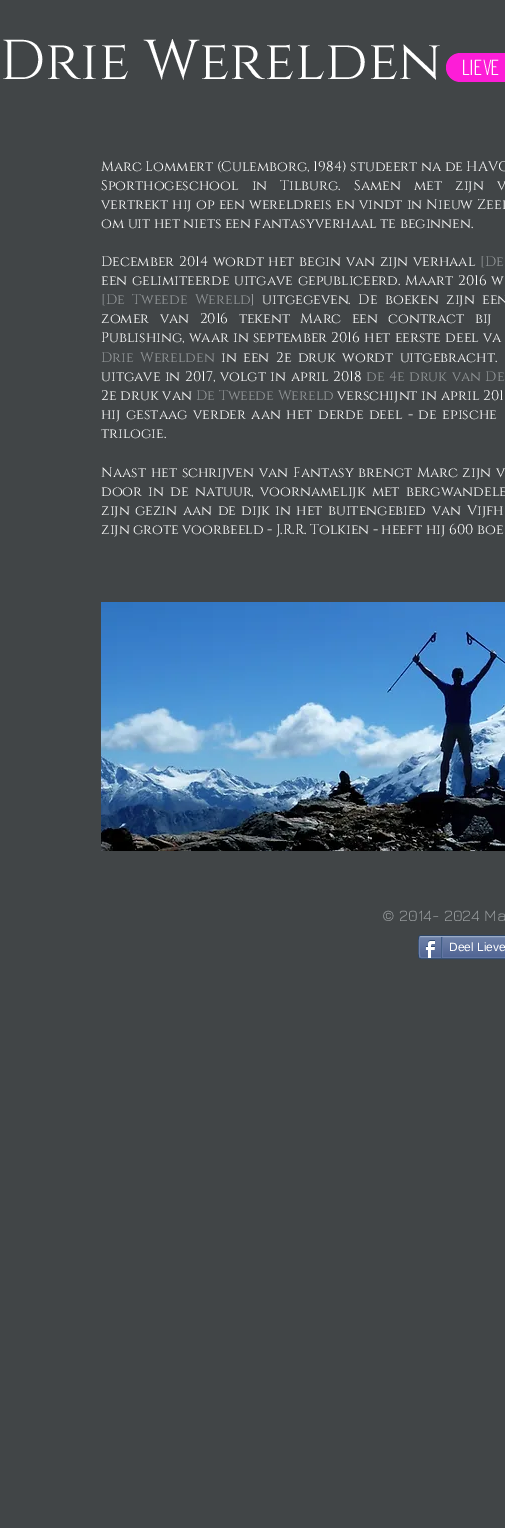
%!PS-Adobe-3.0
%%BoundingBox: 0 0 505 1528
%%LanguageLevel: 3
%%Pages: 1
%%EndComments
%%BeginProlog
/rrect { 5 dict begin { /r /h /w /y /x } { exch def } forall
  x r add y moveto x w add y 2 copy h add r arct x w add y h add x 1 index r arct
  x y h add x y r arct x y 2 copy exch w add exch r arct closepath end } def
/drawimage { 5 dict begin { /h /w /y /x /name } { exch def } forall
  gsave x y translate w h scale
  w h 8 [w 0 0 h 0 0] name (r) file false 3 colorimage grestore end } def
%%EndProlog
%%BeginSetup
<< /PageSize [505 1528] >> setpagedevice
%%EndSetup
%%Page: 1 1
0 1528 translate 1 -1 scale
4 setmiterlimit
0.255 0.271 0.278 setrgbcolor
0 0 505 1528 rectfill
0.992 0.114 0.843 setrgbcolor
446 53 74 29 14.5 rrect fill
(images/1.raw) 101 602 404 249 drawimage
0.176 0.271 0.396 setrgbcolor
418.5 935.5 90 23 2.5 rrect stroke
(images/2.raw) 419 937 86 21 drawimage
0.604 0.671 0.776 setrgbcolor
newpath 420 937 moveto 421 936.5 lineto 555 936.5 lineto 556 937 lineto stroke
0.38 0.463 0.639 setrgbcolor
newpath 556 957 moveto 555 957.5 lineto 421 957.5 lineto 420 957 lineto stroke
0.435 0.514 0.678 setrgbcolor
newpath 420 957 moveto 419 956.5 419 937.5 420 937 curveto stroke
(images/3.raw) 425 940 10 18 drawimage
0.259 0.369 0.522 setrgbcolor
441 937 1 21 rectfill
0.38 0.463 0.639 setrgbcolor
442 937 1 20 rectfill
/Cinzel-Regular [56 0 0 -56 0 0] selectfont
1 setgray
0 79 moveto (Drie Werelden) show
/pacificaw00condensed-Regular [19 0 0 -19 0 0] selectfont
462 75 moveto (Lieve) show
/Cinzel-Regular [14 0 0 -14 0 0] selectfont
101 171 moveto (Marc Lommert \(Culemborg, 1984\) studeert na de HAVO) show
101 190 moveto 9.75 0 32 (Sporthogeschool in Tilburg. Samen met zijn v) widthshow
101 209 moveto 0.75 0 32 (vertrekt hij op een wereldreis en vindt in Nieuw Zeel) widthshow
101 228 moveto (om uit het niets een fantasyverhaal te beginnen.) show
101 266 moveto 1.25 0 32 (December 2014 wordt het begin van zijn verhaal) widthshow
0.588 0.604 0.612 setrgbcolor
480 266 moveto ([) show
485 266 moveto 1.25 0 32 (De) widthshow
1 setgray
101 285 moveto 1 0 32 (een gelimiteerde uitgave gepubliceerd. Maart 2016 w) widthshow
0.588 0.604 0.612 setrgbcolor
101 304 moveto ([) show
106 304 moveto 4 0 32 (De Tweede Wereld) widthshow
250 304 moveto (]) show
1 setgray
262 304 moveto 4 0 32 (uitgegeven. De boeken zijn een) widthshow
101 323 moveto 7 0 32 (zomer van 2016 tekent Marc een contract bij) widthshow
101 342 moveto 0.75 0 32 (Publishing, waar in september 2016 het eerste deel va) widthshow
0.588 0.604 0.612 setrgbcolor
101 362 moveto 3 0 32 (Drie Werelden) widthshow
1 setgray
221 362 moveto 3 0 32 (in een 2e druk wordt uitgebracht.) widthshow
101 381 moveto 1 0 32 (uitgave in 2017, volgt in april 2018) widthshow
0.588 0.604 0.612 setrgbcolor
366 381 moveto 1 0 32 (de 4e druk van De) widthshow
1 setgray
101 400 moveto 0.5 0 32 (2e druk van) widthshow
0.588 0.604 0.612 setrgbcolor
196 400 moveto 0.5 0 32 (De Tweede Wereld) widthshow
1 setgray
337 400 moveto 0.5 0 32 (verschijnt in april 201) widthshow
101 419 moveto 2 0 32 (hij gestaag verder aan het derde deel - de epische) widthshow
101 438 moveto (trilogie.) show
101 477 moveto 1.25 0 32 (Naast het schrijven van Fantasy brengt Marc zijn v) widthshow
101 496 moveto 2.75 0 32 (door in de natuur, voornamelijk met bergwandele) widthshow
101 515 moveto 2 0 32 (zijn gezin aan de dijk in het buitengebied van Vijfh) widthshow
101 534 moveto (zijn grote voorbeeld - J.R.R. Tolkien - heeft hij 600 boe) show
/Jura-Regular [16 0 0 -16 0 0] selectfont
0.588 0.604 0.612 setrgbcolor
382 921 moveto (© 2014- 2024 Ma) show
/LiberationSans-Regular [12 0 0 -12 0 0] selectfont
1 setgray
449 951 moveto (Deel Lieve) show
showpage
%%EOF
